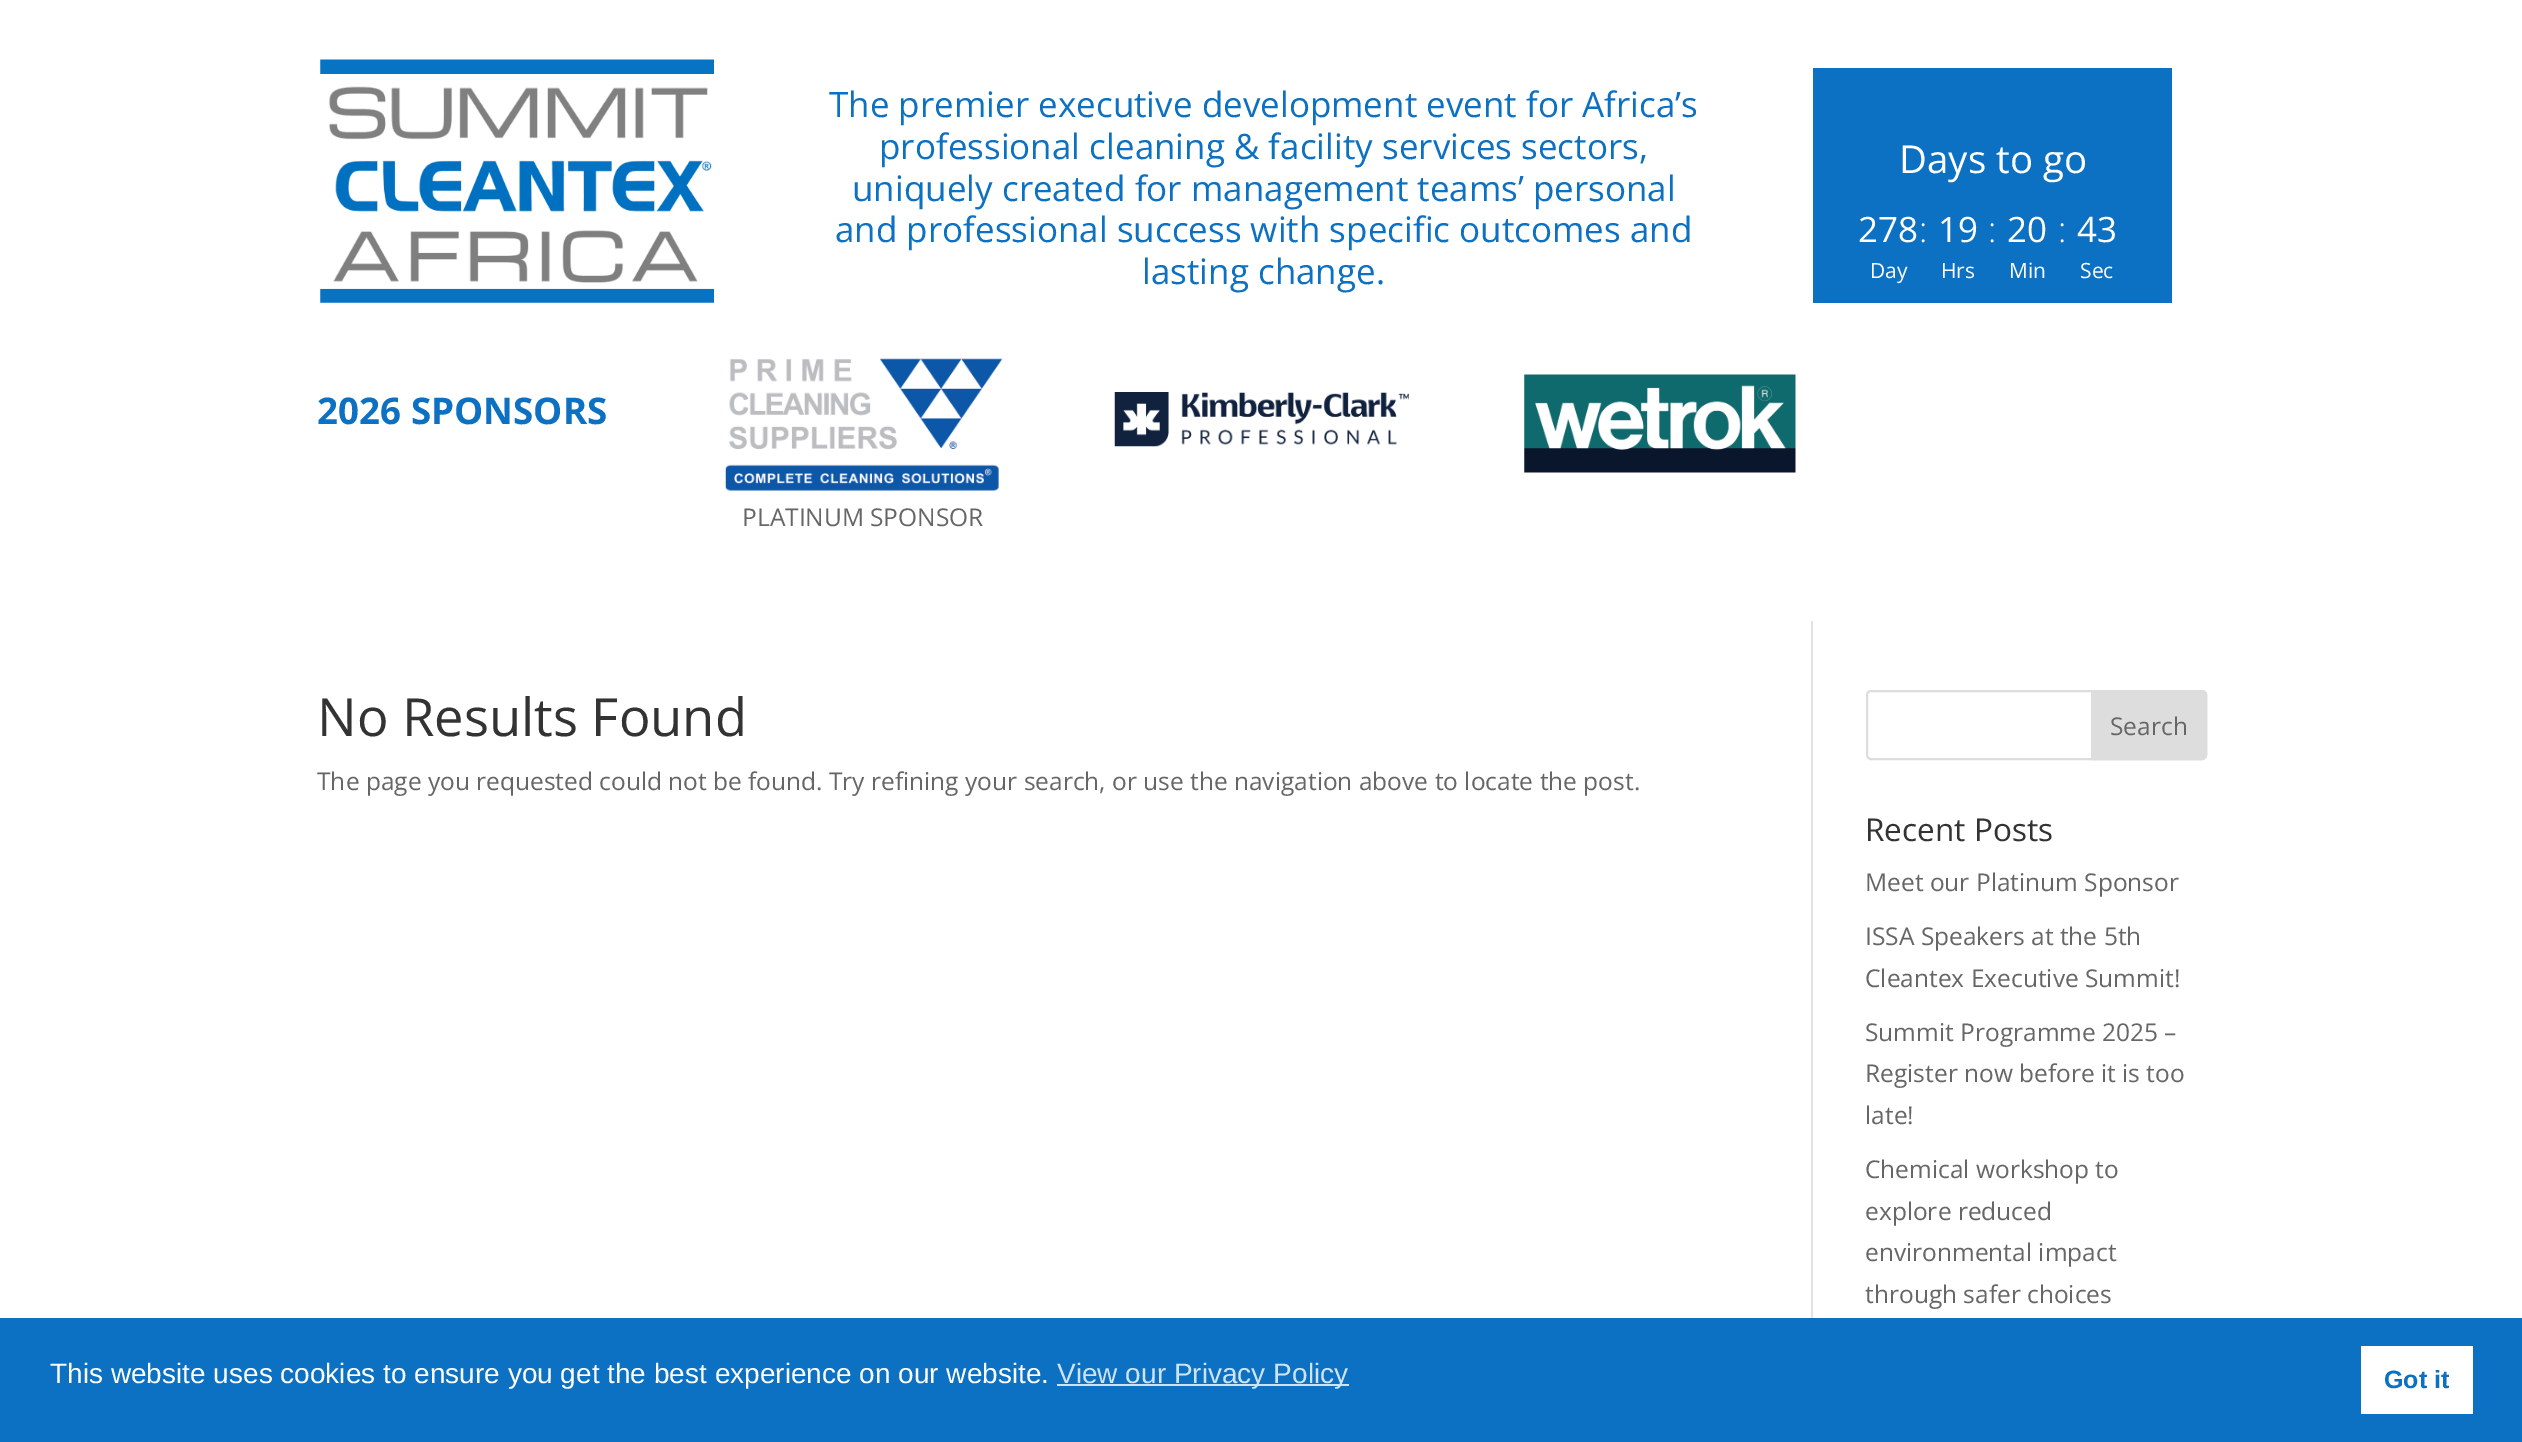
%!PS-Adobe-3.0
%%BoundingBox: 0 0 2522 1442
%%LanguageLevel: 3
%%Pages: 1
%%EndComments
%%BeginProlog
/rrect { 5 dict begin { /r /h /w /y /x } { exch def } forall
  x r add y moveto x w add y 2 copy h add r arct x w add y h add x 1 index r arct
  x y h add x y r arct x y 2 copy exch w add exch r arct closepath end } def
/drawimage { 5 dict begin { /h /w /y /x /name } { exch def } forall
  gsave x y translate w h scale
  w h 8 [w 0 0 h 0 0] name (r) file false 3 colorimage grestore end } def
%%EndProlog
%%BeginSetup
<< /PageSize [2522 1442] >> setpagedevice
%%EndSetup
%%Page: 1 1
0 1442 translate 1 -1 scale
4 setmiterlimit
1 setgray
0 0 2522 1442 rectfill
(images/1.raw) 320 59 394 244 drawimage
0.047 0.443 0.765 setrgbcolor
1813 68 359 235 rectfill
(images/2.raw) 725 358 278 133 drawimage
(images/3.raw) 1114 392 295 55 drawimage
(images/4.raw) 1524 374 272 99 drawimage
0.886 setgray
1811 621 2 697 rectfill
0.867 setgray
2 setlinewidth
1867 691 339 68 4 rrect stroke
newpath 2092 691 moveto 2202 691 lineto 2204 691 2206 693 2206 695 curveto 2206 755 lineto 2206 757 2204 759 2202 759 curveto 2092 759 lineto closepath gsave fill grestore
stroke
0.047 0.443 0.765 setrgbcolor
0 1318 2522 124 rectfill
0.808 0.89 0.953 setrgbcolor
1057 1384 292 2 rectfill
1 setgray
2361 1346 112 68 rectfill
/OpenSans-Regular [35 0 0 -35 0 0] selectfont
0.047 0.443 0.765 setrgbcolor
829 117 moveto (The premier executive development event for Africa’s) show
879 159 moveto (professional cleaning & facility services sectors,) show
852 201 moveto (uniquely created for management teams’ personal) show
835 242 moveto (and professional success with specific outcomes and) show
1142 284 moveto (lasting change.) show
/OpenSans-Regular [38.5 0 0 -38.5 0 0] selectfont
1 setgray
1899 173 moveto (Days to go) show
/OpenSans-Regular [35 0 0 -35 0 0] selectfont
1858 242 moveto (278) show
/OpenSans-Regular [21 0 0 -21 0 0] selectfont
1870 278 moveto (Day) show
/OpenSans-Light [35 0 0 -35 0 0] selectfont
1919 242 moveto (:) show
/OpenSans-Regular [35 0 0 -35 0 0] selectfont
1938 242 moveto (19) show
/OpenSans-Regular [21 0 0 -21 0 0] selectfont
1941 278 moveto (Hrs) show
/OpenSans-Light [35 0 0 -35 0 0] selectfont
1988 242 moveto (:) show
/OpenSans-Regular [35 0 0 -35 0 0] selectfont
2007 242 moveto (20) show
/OpenSans-Regular [21 0 0 -21 0 0] selectfont
2009 278 moveto (Min) show
/OpenSans-Light [35 0 0 -35 0 0] selectfont
2058 242 moveto (:) show
/OpenSans-Regular [35 0 0 -35 0 0] selectfont
2077 242 moveto (43) show
/OpenSans-Regular [21 0 0 -21 0 0] selectfont
2080 278 moveto (Sec) show
/OpenSans-Bold [36.75 0 0 -36.75 0 0] selectfont
0.047 0.443 0.765 setrgbcolor
317 424 moveto (2026 SPONSORS) show
/OpenSans-Regular [24.5 0 0 -24.5 0 0] selectfont
0.4 setgray
742 526 moveto (PLATINUM SPONSOR) show
/OpenSans-Regular [52.5 0 0 -52.5 0 0] selectfont
0.2 setgray
317 736 moveto (No Results Found) show
/OpenSans-Regular [24.5 0 0 -24.5 0 0] selectfont
0.4 setgray
317 790 moveto (The page you requested could not be found. Try refining your search, or use the navigation above to locate the post.) show
2110 735 moveto (Search) show
/OpenSans-Regular [31.5 0 0 -31.5 0 0] selectfont
0.2 setgray
1865 841 moveto (Recent Posts) show
/OpenSans-Regular [24.5 0 0 -24.5 0 0] selectfont
0.4 setgray
1865 891 moveto (Meet our Platinum Sponsor) show
1865 945 moveto (ISSA Speakers at the 5th) show
1865 987 moveto (Cleantex Executive Summit!) show
1865 1041 moveto (Summit Programme 2025 –) show
1865 1082 moveto (Register now before it is too) show
1865 1124 moveto (late!) show
1865 1178 moveto (Chemical workshop to) show
1865 1220 moveto (explore reduced) show
1865 1261 moveto (environmental impact) show
1865 1303 moveto (through safer choices) show
/LiberationSans-Regular [28 0 0 -28 0 0] selectfont
1 setgray
50 1383 moveto (This website uses cookies to ensure you get the best experience on our website.) show
0.808 0.89 0.953 setrgbcolor
1057 1383 moveto (View our Privacy Policy) show
/LiberationSans-Bold [25 0 0 -25 0 0] selectfont
0.047 0.443 0.765 setrgbcolor
2384 1388 moveto (Got it) show
showpage
%%EOF
